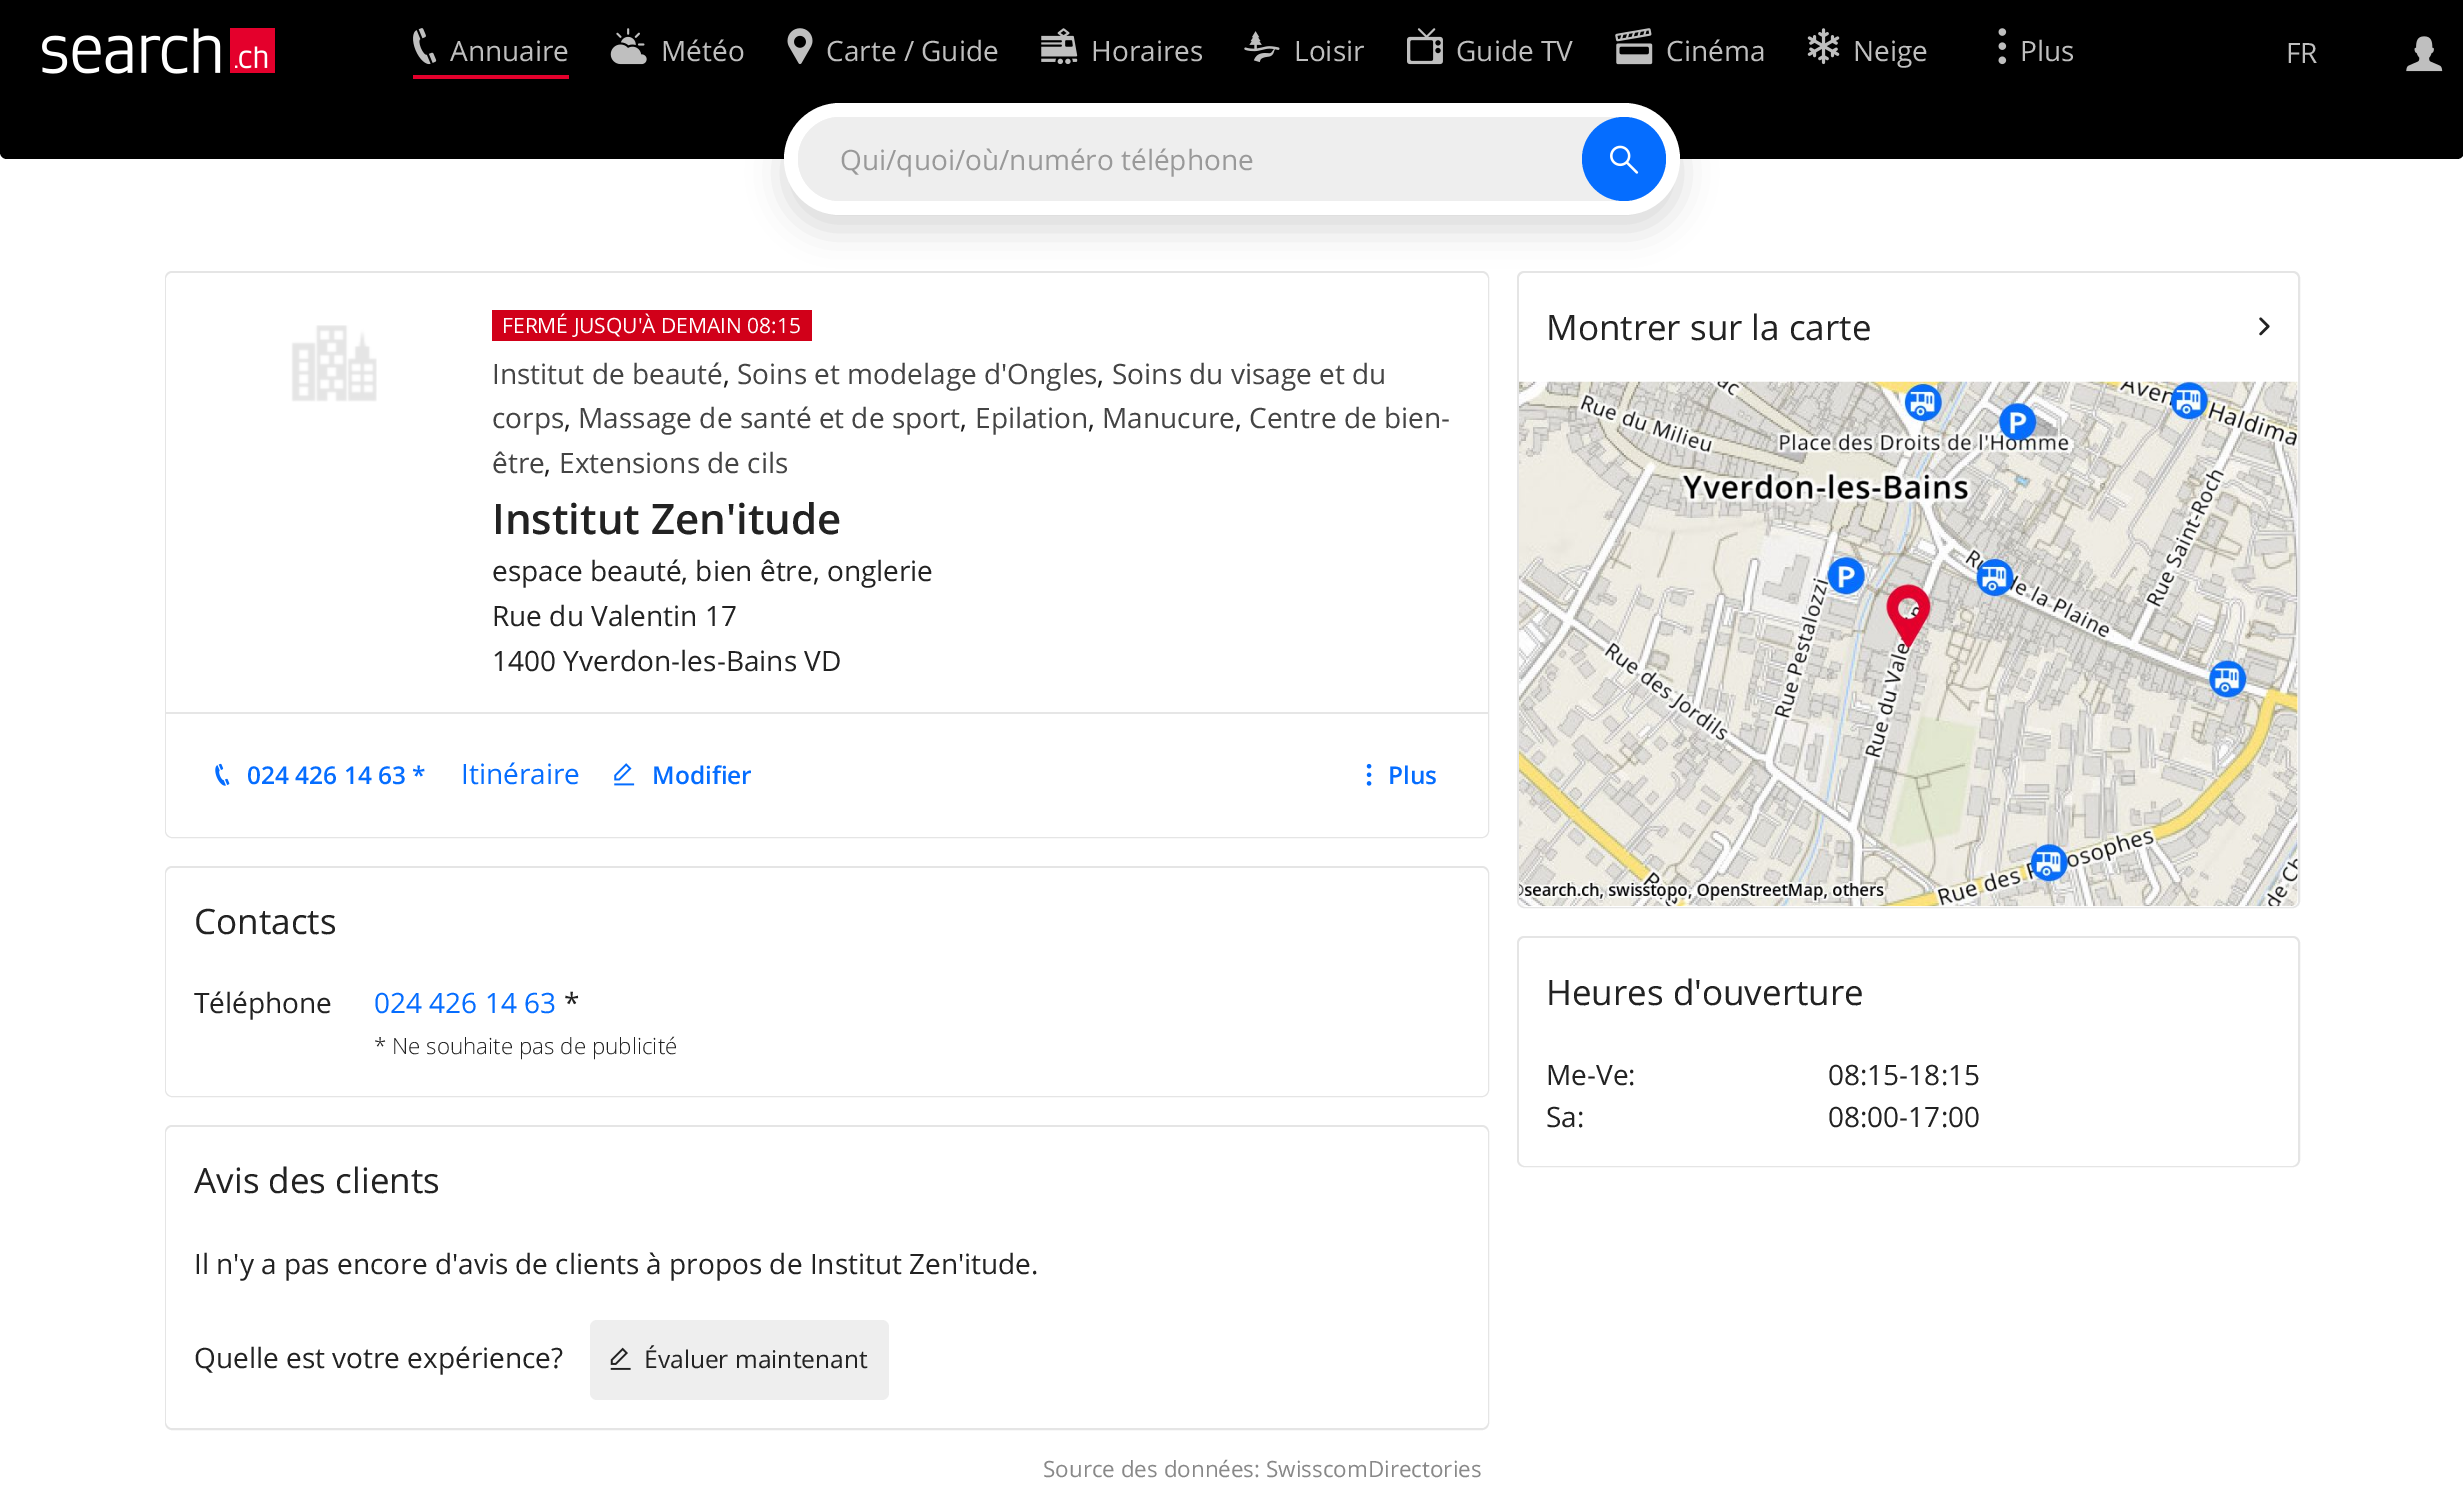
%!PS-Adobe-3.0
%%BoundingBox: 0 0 2463 1512
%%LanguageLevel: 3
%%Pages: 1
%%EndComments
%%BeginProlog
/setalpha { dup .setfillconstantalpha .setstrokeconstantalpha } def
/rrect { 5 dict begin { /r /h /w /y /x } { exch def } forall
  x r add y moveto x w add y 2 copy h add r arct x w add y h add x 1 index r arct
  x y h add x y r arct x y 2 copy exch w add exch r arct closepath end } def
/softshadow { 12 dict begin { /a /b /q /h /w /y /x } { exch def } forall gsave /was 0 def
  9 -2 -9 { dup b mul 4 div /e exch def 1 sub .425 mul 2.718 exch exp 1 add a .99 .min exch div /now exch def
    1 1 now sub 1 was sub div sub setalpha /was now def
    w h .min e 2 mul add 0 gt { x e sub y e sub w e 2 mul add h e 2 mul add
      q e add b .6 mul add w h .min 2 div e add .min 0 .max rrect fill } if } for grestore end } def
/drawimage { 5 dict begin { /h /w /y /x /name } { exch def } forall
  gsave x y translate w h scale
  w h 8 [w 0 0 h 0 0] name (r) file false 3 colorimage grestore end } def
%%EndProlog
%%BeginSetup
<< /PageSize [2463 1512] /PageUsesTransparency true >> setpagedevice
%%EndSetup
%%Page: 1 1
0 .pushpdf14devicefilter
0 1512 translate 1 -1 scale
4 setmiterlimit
1 setgray
0 0 2463 1512 rectfill
0 setgray
0 0 2463 103 rectfill
(images/1.raw) 42 28 233 46 drawimage
0.894 0 0.173 setrgbcolor
413 75 156 4 rectfill
(images/2.raw) 413 28 24 37 drawimage
(images/3.raw) 610 28 37 37 drawimage
(images/4.raw) 787 28 26 36 drawimage
(images/5.raw) 1041 28 37 37 drawimage
(images/6.raw) 1244 31 36 32 drawimage
(images/7.raw) 1407 28 36 37 drawimage
(images/8.raw) 1615 28 38 37 drawimage
(images/9.raw) 1807 28 33 37 drawimage
(images/10.raw) 1998 28 9 37 drawimage
(images/11.raw) 2406 36 37 36 drawimage
0 setgray
newpath 0 103 moveto 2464 103 lineto 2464 152 lineto 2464 156 2461 159 2457 159 curveto 7 159 lineto 3 159 0 156 0 152 curveto closepath fill
0.898 setgray
2 setlinewidth
166 272 1322 565 6 rrect stroke
1 setgray
166 273 1322 564 7 rrect fill
0.898 setgray
1518 272 781 635 6 rrect stroke
1 setgray
1519 273 779 634 7 rrect fill
0 setgray
784 117 896 112 56 17.5 0.15 softshadow
1 setgray
784 103 896 112 56 rrect fill
0.933 setgray
798 117 868 84 42 rrect fill
798 117 784 84 42 rrect fill
0.02 0.427 1 setrgbcolor
newpath 1624 159 42 0 360 arc closepath fill
(images/12.raw) 1610 145 29 29 drawimage
(images/13.raw) 291 325 86 77 drawimage
0.82 0 0.098 setrgbcolor
492 310 320 31 rectfill
0.902 setgray
166 712 1322 2 rectfill
(images/14.raw) 215 763 15 23 drawimage
(images/15.raw) 614 763 21 23 drawimage
(images/16.raw) 1366 763 6 23 drawimage
0.898 setgray
166 867 1322 229 6 rrect stroke
1 setgray
166 868 1322 228 7 rrect fill
0.898 setgray
166 1126 1322 303 6 rrect stroke
1 setgray
166 1127 1322 301 7 rrect fill
0.933 setgray
590 1320 299 80 7 rrect fill
(images/17.raw) 610 1347 21 23 drawimage
(images/18.raw) 2259 317 11 19 drawimage
(images/19.raw) 1519 381 779 526 drawimage
0.898 setgray
1518 937 781 229 6 rrect stroke
1 setgray
1519 938 779 228 7 rrect fill
/OpenSans-Regular [28 0 0 -28 0 0] selectfont
0.749 setgray
450 61 moveto (Annuaire) show
661 61 moveto (Météo) show
826 61 moveto (Carte / Guide) show
1091 61 moveto (Horaires) show
1294 61 moveto (Loisir) show
1456 61 moveto (Guide TV) show
1666 61 moveto (Cinéma) show
1853 61 moveto (Neige) show
2020 61 moveto (Plus) show
2286 63 moveto (FR) show
0.6 setgray
840 170 moveto (Qui/quoi/où/numéro téléphone) show
/OpenSans-Regular [21 0 0 -21 0 0] selectfont
1 setgray
502 333 moveto (FERMÉ JUSQU'À DEMAIN 08:15) show
/OpenSans-Regular [28 0 0 -28 0 0] selectfont
0.267 setgray
492 384 moveto (Institut de beauté) show
0.133 setgray
723 384 moveto (,) show
0.267 setgray
737 384 moveto (Soins et modelage d'Ongles) show
0.133 setgray
1097 384 moveto (,) show
0.267 setgray
1112 384 moveto (Soins du visage et du) show
492 428 moveto (corps) show
0.133 setgray
564 428 moveto (,) show
0.267 setgray
578 428 moveto (Massage de santé et de sport) show
0.133 setgray
960 428 moveto (,) show
0.267 setgray
975 428 moveto (Epilation) show
0.133 setgray
1088 428 moveto (,) show
0.267 setgray
1102 428 moveto (Manucure) show
0.133 setgray
1235 428 moveto (,) show
0.267 setgray
1249 428 moveto (Centre de bien-) show
492 473 moveto (être) show
0.133 setgray
544 473 moveto (,) show
0.267 setgray
559 473 moveto (Extensions de cils) show
/OpenSans-SemiBold [42 0 0 -42 0 0] selectfont
0.133 setgray
492 534 moveto (Institut Zen'itude) show
/OpenSans-Regular [28 0 0 -28 0 0] selectfont
492 581 moveto (espace beauté, bien être, onglerie) show
492 626 moveto (Rue du Valentin 17) show
492 671 moveto (1400 Yverdon-les-Bains VD) show
/OpenSans-SemiBold [24.5 0 0 -24.5 0 0] selectfont
0.02 0.427 1 setrgbcolor
247 784 moveto (024 426 14 63 *) show
/OpenSans-Regular [28 0 0 -28 0 0] selectfont
461 784 moveto (Itinéraire) show
/OpenSans-SemiBold [24.5 0 0 -24.5 0 0] selectfont
652 784 moveto (Modifier) show
1388 784 moveto (Plus) show
/OpenSans-Regular [35 0 0 -35 0 0] selectfont
0.133 setgray
194 934 moveto (Contacts) show
/OpenSans-Regular [28 0 0 -28 0 0] selectfont
194 1013 moveto (Téléphone) show
0.02 0.427 1 setrgbcolor
374 1013 moveto (024 426 14 63) show
0.133 setgray
564 1013 moveto (*) show
/OpenSans-Light [22.4 0 0 -22.4 0 0] selectfont
374 1054 moveto (* Ne souhaite pas de publicité) show
/OpenSans-Regular [35 0 0 -35 0 0] selectfont
194 1193 moveto (Avis des clients) show
/OpenSans-Regular [28 0 0 -28 0 0] selectfont
194 1274 moveto (Il n'y a pas encore d'avis de clients à propos de Institut Zen'itude.) show
194 1368 moveto (Quelle est votre expérience?) show
/OpenSans-Regular [24.5 0 0 -24.5 0 0] selectfont
644 1368 moveto (Évaluer maintenant) show
/OpenSans-Regular [22.4 0 0 -22.4 0 0] selectfont
0.533 setgray
1043 1477 moveto (Source des données: SwisscomDirectories) show
/OpenSans-Regular [35 0 0 -35 0 0] selectfont
0.133 setgray
1546 340 moveto (Montrer sur la carte) show
1546 1005 moveto (Heures d'ouverture) show
/OpenSans-Regular [28 0 0 -28 0 0] selectfont
1546 1085 moveto (Me-Ve:) show
1828 1085 moveto (08:15-18:15) show
1546 1127 moveto (Sa:) show
1828 1127 moveto (08:00-17:00) show
.poppdf14devicefilter showpage
%%EOF
